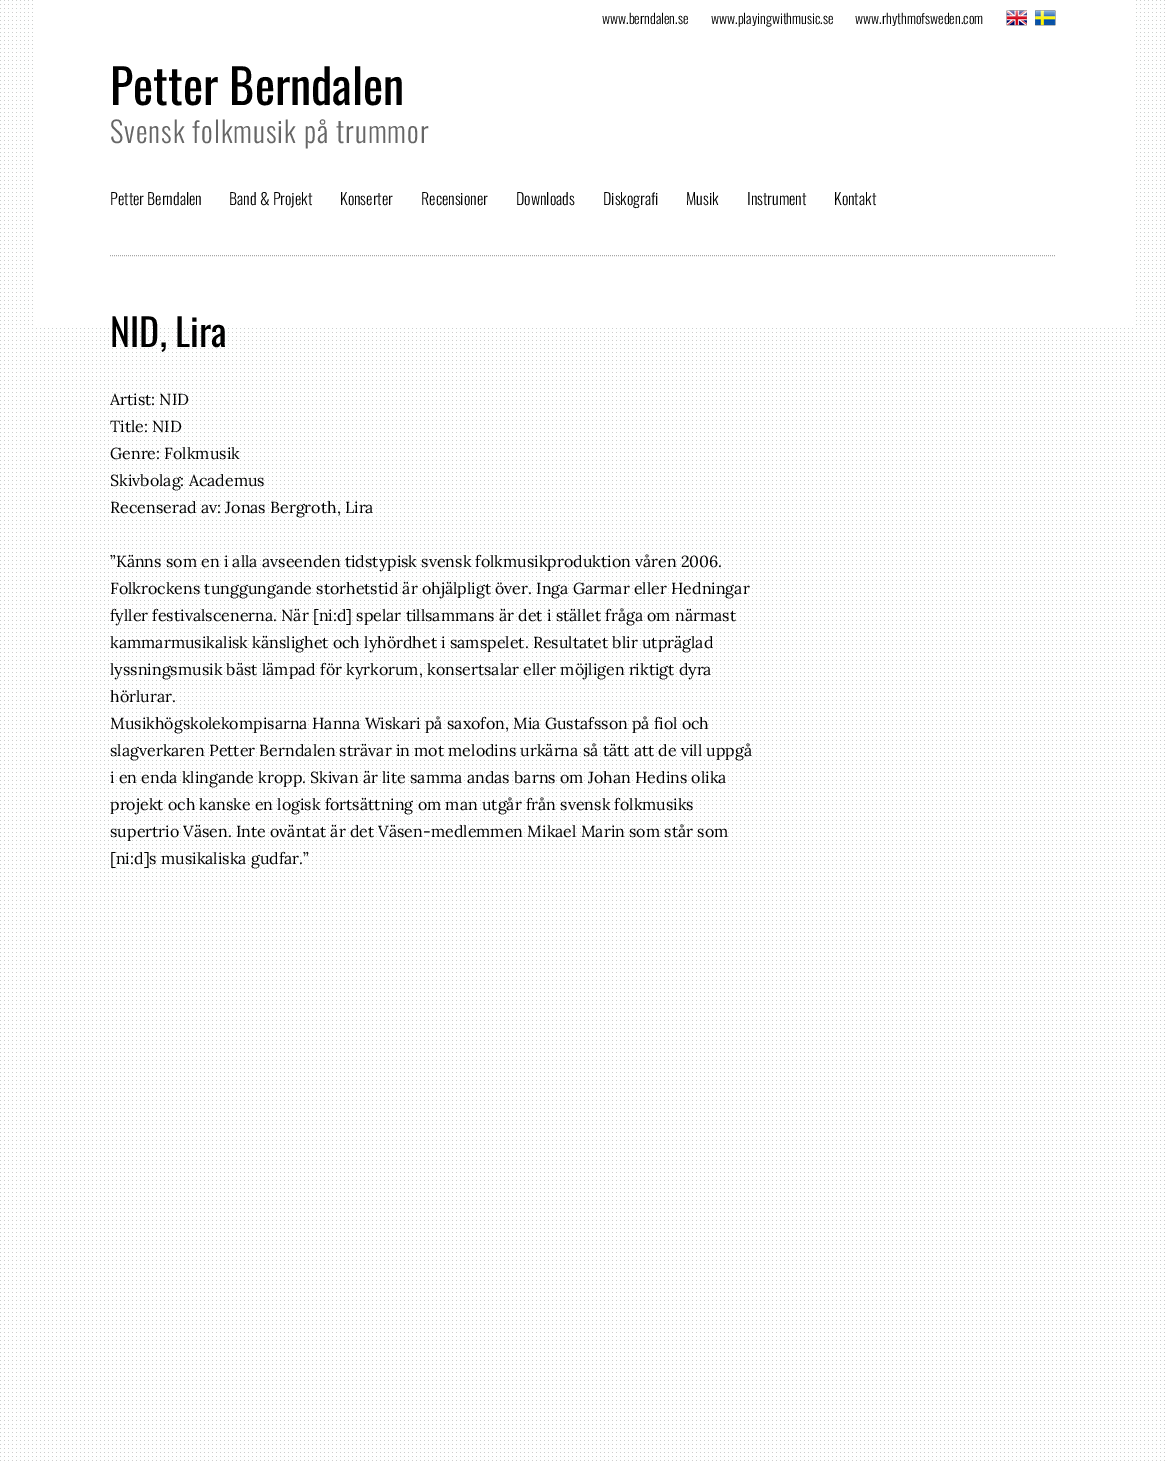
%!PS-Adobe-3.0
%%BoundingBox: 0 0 1165 1464
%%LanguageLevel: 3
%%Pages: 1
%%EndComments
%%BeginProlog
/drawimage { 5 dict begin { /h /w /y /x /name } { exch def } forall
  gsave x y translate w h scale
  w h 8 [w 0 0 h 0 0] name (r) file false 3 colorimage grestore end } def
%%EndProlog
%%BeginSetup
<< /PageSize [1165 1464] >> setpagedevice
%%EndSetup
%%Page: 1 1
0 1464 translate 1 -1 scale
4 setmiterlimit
1 setgray
0 0 1165 1464 rectfill
(images/1.raw) 0 0 1165 1461 drawimage
33 0 1100 325 rectfill
0.655 setgray
[1 1] 0 setdash
newpath 110 255.5 moveto 1056 255.5 lineto stroke
(images/2.raw) 1006 10 21 16 drawimage
(images/3.raw) 1035 10 21 16 drawimage
/Oswald-Light [14 0 0 -14 0 0] selectfont
0 setgray
602 24 moveto (www.berndalen.se) show
711 24 moveto (www.playingwithmusic.se) show
855 24 moveto (www.rhythmofsweden.com) show
/Oswald-Regular [48 0 0 -48 0 0] selectfont
110 105 moveto (Petter Berndalen) show
/Oswald-Light [29 0 0 -29 0 0] selectfont
0.4 setgray
110 143 moveto 1 0 (Svensk folkmusik på trummor) ashow
/Oswald-Light [16 0 0 -16 0 0] selectfont
0 setgray
110 205 moveto (Petter Berndalen) show
229 205 moveto (Band & Projekt) show
340 205 moveto (Konserter) show
421 205 moveto (Recensioner) show
516 205 moveto (Downloads) show
603 205 moveto (Diskografi) show
686 205 moveto (Musik) show
747 205 moveto (Instrument) show
834 205 moveto (Kontakt) show
/Oswald-Regular [38 0 0 -38 0 0] selectfont
110 347 moveto (NID, Lira) show
/Lora-Regular [16 0 0 -16 0 0] selectfont
110 405 moveto (Artist: NID) show
110 432 moveto (Title: NID) show
110 459 moveto (Genre: Folkmusik) show
110 486 moveto (Skivbolag: Academus) show
110 513 moveto (Recenserad av: Jonas Bergroth, Lira) show
110 567 moveto (”Känns som en i alla avseenden tidstypisk svensk folkmusikproduktion våren 2006.) show
110 594 moveto (Folkrockens tunggungande storhetstid är ohjälpligt över. Inga Garmar eller Hedningar) show
110 621 moveto (fyller festivalscenerna. När [ni:d] spelar tillsammans är det i stället fråga om närmast) show
110 648 moveto (kammarmusikalisk känslighet och lyhördhet i samspelet. Resultatet blir utpräglad) show
110 675 moveto (lyssningsmusik bäst lämpad för kyrkorum, konsertsalar eller möjligen riktigt dyra) show
110 702 moveto (hörlurar.) show
110 729 moveto (Musikhögskolekompisarna Hanna Wiskari på saxofon, Mia Gustafsson på fiol och) show
110 756 moveto (slagverkaren Petter Berndalen strävar in mot melodins urkärna så tätt att de vill uppgå) show
110 783 moveto (i en enda klingande kropp. Skivan är lite samma andas barns om Johan Hedins olika) show
110 810 moveto (projekt och kanske en logisk fortsättning om man utgår från svensk folkmusiks) show
110 837 moveto (supertrio Väsen. Inte oväntat är det Väsen-medlemmen Mikael Marin som står som) show
110 864 moveto ([ni:d]s musikaliska gudfar.”) show
showpage
%%EOF
